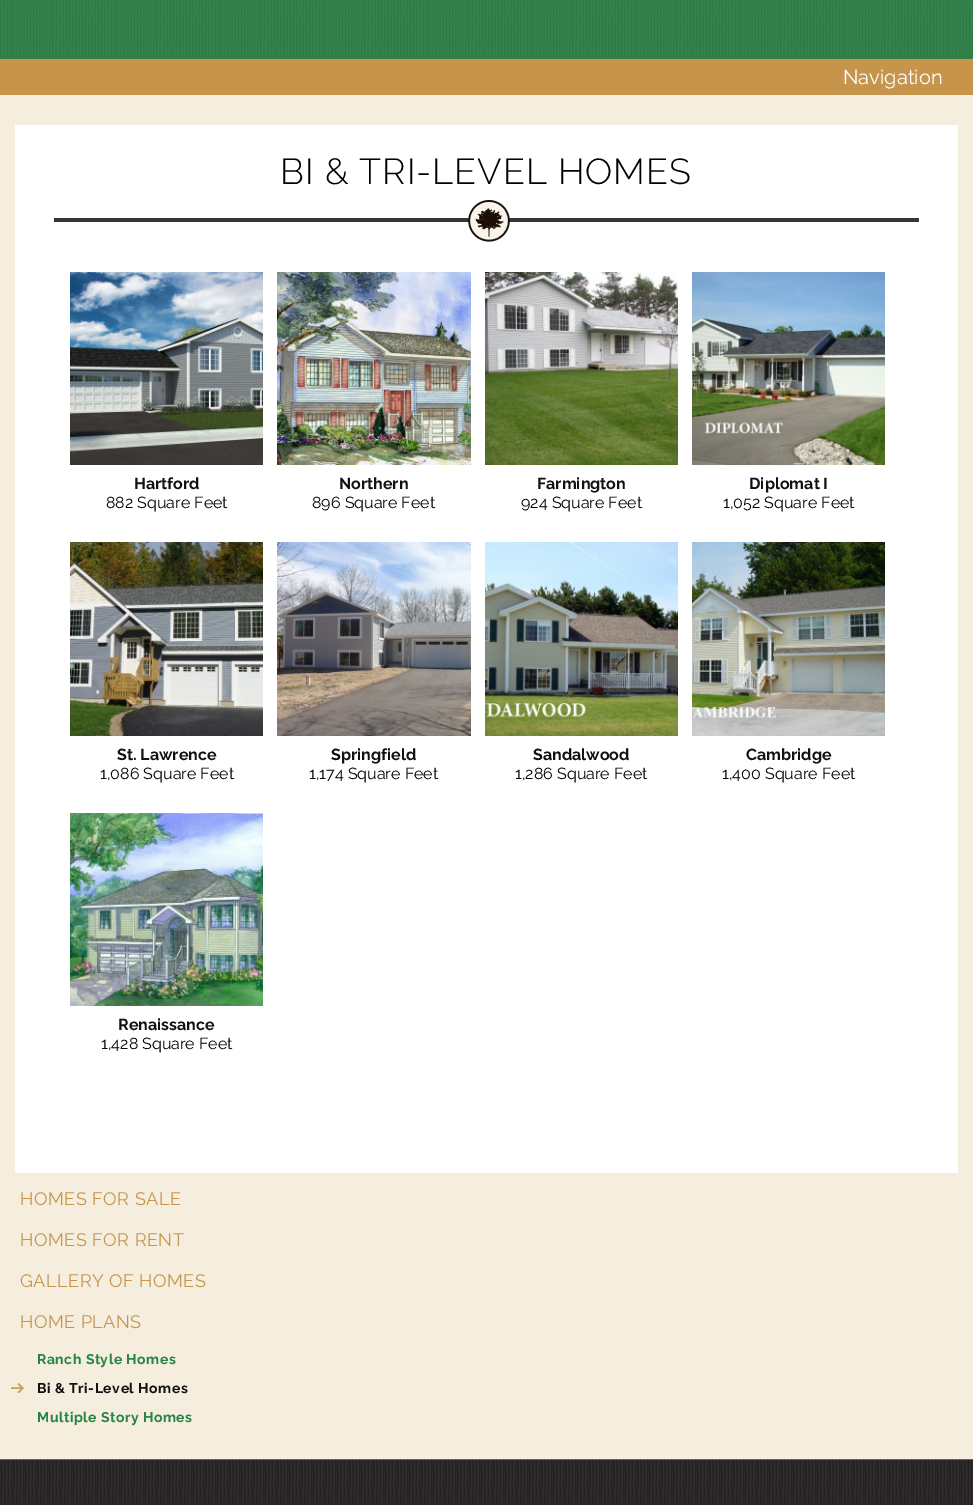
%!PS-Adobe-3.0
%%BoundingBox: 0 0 973 1505
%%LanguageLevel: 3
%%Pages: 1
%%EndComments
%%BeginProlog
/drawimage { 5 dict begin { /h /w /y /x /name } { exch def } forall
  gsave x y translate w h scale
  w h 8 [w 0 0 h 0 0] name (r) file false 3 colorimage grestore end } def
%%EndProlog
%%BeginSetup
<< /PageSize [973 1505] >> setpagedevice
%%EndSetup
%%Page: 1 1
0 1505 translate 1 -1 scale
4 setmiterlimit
0.961 0.933 0.871 setrgbcolor
0 0 973 1505 rectfill
(images/1.raw) 0 0 973 59 drawimage
0.776 0.58 0.294 setrgbcolor
0 59 973 36 rectfill
1 setgray
15 125 943 1048 rectfill
(images/2.raw) 54 200 865 42 drawimage
(images/3.raw) 70 272 193 193 drawimage
(images/4.raw) 277 272 194 193 drawimage
(images/5.raw) 485 272 193 193 drawimage
(images/6.raw) 692 272 193 193 drawimage
(images/7.raw) 70 542 193 194 drawimage
(images/8.raw) 277 542 194 194 drawimage
(images/9.raw) 485 542 193 194 drawimage
(images/10.raw) 692 542 193 194 drawimage
(images/11.raw) 70 813 193 193 drawimage
(images/12.raw) 11 1383 13 10 drawimage
(images/13.raw) 0 1459 973 46 drawimage
/Raleway-Regular [20 0 0 -20 0 0] selectfont
843 84 moveto (Navigation) show
/Raleway-Light [36 0 0 -36 0 0] selectfont
0 setgray
280 184 moveto 1 0 (BI & TRI-LEVEL HOMES) ashow
/Raleway-Bold [16 0 0 -16 0 0] selectfont
0.067 setgray
134 489 moveto (Hartford) show
/Raleway-Regular [16 0 0 -16 0 0] selectfont
0 setgray
106 508 moveto (882 Square Feet) show
/Raleway-Bold [16 0 0 -16 0 0] selectfont
0.067 setgray
339 489 moveto (Northern) show
/Raleway-Regular [16 0 0 -16 0 0] selectfont
0 setgray
312 508 moveto (896 Square Feet) show
/Raleway-Bold [16 0 0 -16 0 0] selectfont
0.067 setgray
537 489 moveto (Farmington) show
/Raleway-Regular [16 0 0 -16 0 0] selectfont
0 setgray
521 508 moveto (924 Square Feet) show
/Raleway-Bold [16 0 0 -16 0 0] selectfont
0.067 setgray
749 489 moveto (Diplomat I) show
/Raleway-Regular [16 0 0 -16 0 0] selectfont
0 setgray
723 508 moveto (1,052 Square Feet) show
/Raleway-Bold [16 0 0 -16 0 0] selectfont
0.067 setgray
117 760 moveto (St. Lawrence) show
/Raleway-Regular [16 0 0 -16 0 0] selectfont
0 setgray
100 779 moveto (1,086 Square Feet) show
/Raleway-Bold [16 0 0 -16 0 0] selectfont
0.067 setgray
331 760 moveto (Springfield) show
/Raleway-Regular [16 0 0 -16 0 0] selectfont
0 setgray
309 779 moveto (1,174 Square Feet) show
/Raleway-Bold [16 0 0 -16 0 0] selectfont
0.067 setgray
533 760 moveto (Sandalwood) show
/Raleway-Regular [16 0 0 -16 0 0] selectfont
0 setgray
515 779 moveto (1,286 Square Feet) show
/Raleway-Bold [16 0 0 -16 0 0] selectfont
0.067 setgray
746 760 moveto (Cambridge) show
/Raleway-Regular [16 0 0 -16 0 0] selectfont
0 setgray
722 779 moveto (1,400 Square Feet) show
/Raleway-Bold [16 0 0 -16 0 0] selectfont
0.067 setgray
118 1030 moveto (Renaissance) show
/Raleway-Regular [16 0 0 -16 0 0] selectfont
0 setgray
101 1049 moveto (1,428 Square Feet) show
/Raleway-Regular [18 0 0 -18 0 0] selectfont
0.773 0.584 0.294 setrgbcolor
20 1205 moveto 0.5 0 (HOMES FOR SALE) ashow
20 1246 moveto 0.5 0 (HOMES FOR RENT) ashow
20 1287 moveto 0.5 0 (GALLERY OF HOMES) ashow
20 1328 moveto 0.5 0 (HOME PLANS) ashow
/Raleway-Bold [14 0 0 -14 0 0] selectfont
0.149 0.522 0.267 setrgbcolor
37 1364 moveto 0.5 0 (Ranch Style Homes) ashow
0.067 setgray
37 1393 moveto 0.5 0 (Bi & Tri-Level Homes) ashow
0.149 0.522 0.267 setrgbcolor
37 1422 moveto 0.5 0 (Multiple Story Homes) ashow
showpage
%%EOF
